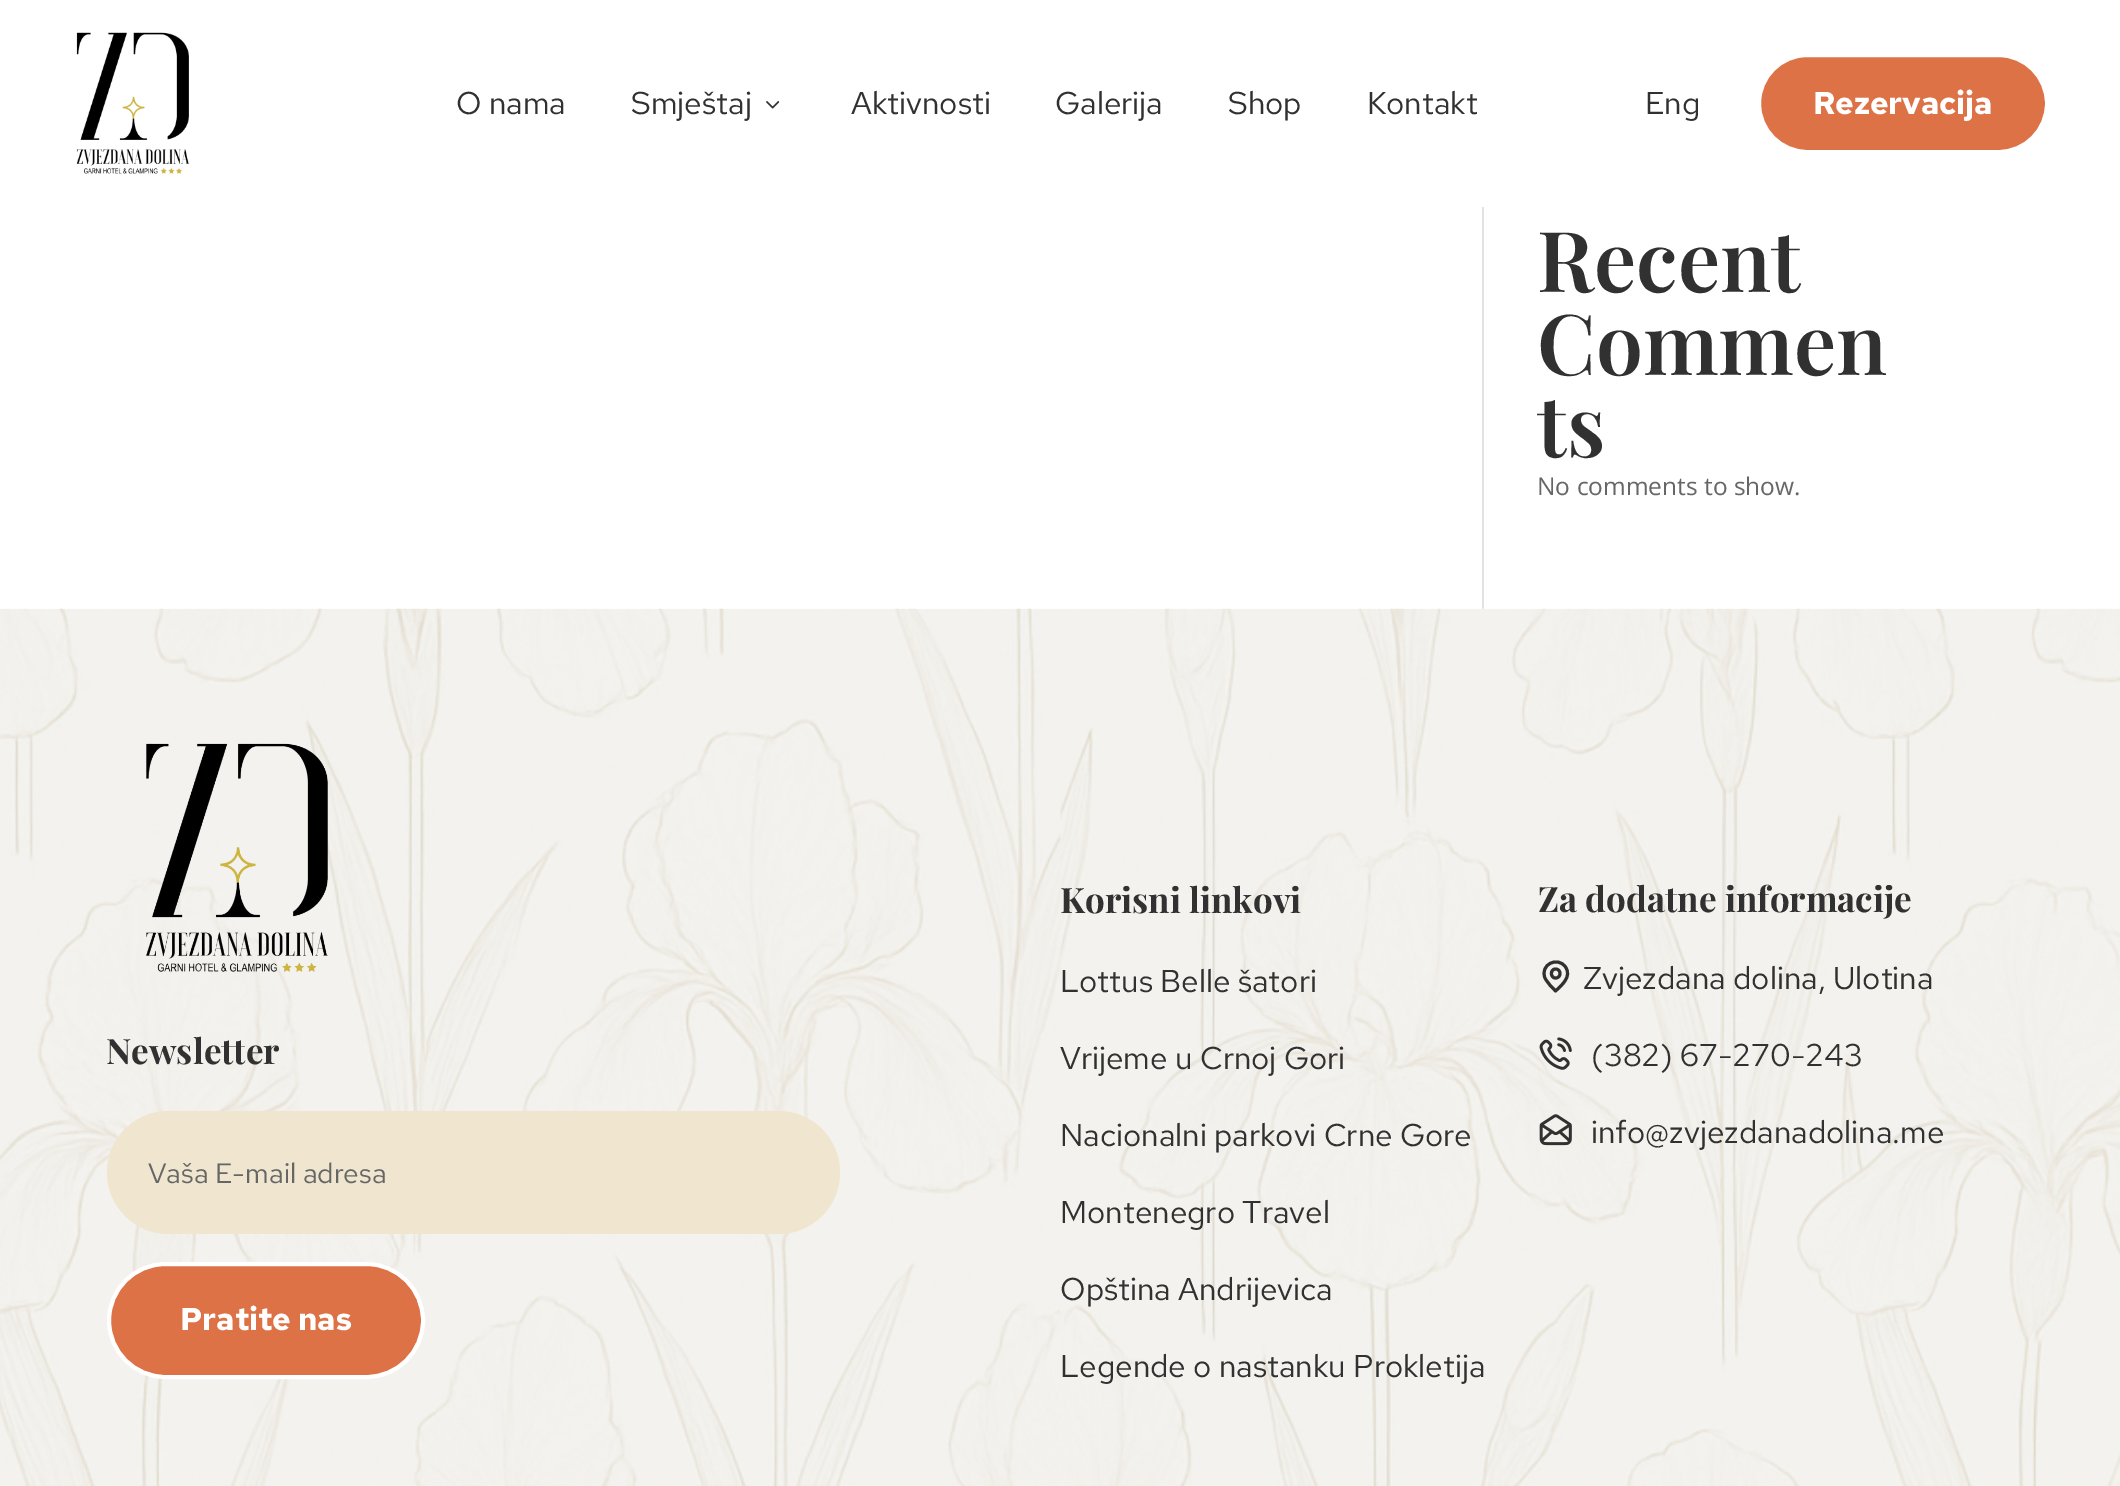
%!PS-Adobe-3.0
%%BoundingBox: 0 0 2120 1486
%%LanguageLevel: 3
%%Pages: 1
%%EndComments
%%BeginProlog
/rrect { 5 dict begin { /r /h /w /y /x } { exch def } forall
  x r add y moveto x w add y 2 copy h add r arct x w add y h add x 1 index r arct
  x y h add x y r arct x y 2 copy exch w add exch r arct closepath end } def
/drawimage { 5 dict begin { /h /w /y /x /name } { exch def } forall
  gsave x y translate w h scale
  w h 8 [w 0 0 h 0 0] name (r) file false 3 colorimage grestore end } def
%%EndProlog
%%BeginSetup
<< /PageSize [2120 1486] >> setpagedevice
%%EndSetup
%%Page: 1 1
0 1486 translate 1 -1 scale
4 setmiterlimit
1 setgray
0 0 2120 1486 rectfill
(images/1.raw) 76 32 114 142 drawimage
(images/2.raw) 766 101 14 8 drawimage
0.867 0.447 0.275 setrgbcolor
1759 55 288 97 48.5 rrect gsave fill grestore
1 setgray
4 setlinewidth
stroke
0.886 setgray
1482 207 2 402 rectfill
0.914 setgray
0 609 2120 877 rectfill
(images/3.raw) 0 608 2120 878 drawimage
(images/4.raw) 146 743 183 230 drawimage
0.941 0.902 0.812 setrgbcolor
107 1111 733 123 61.5 rrect fill
0.867 0.447 0.275 setrgbcolor
109 1264 314 113 56.5 rrect gsave fill grestore
1 setgray
stroke
0.192 setgray
3 setlinewidth
1 setlinecap
1 setlinejoin
newpath 1555.5 978 moveto 1561.5 978 1561.5 969 1555.5 969 curveto 1550 969 1550 978 1555.5 978 curveto closepath 1555.5 991 moveto 1562 985 1572 976.5 1565.5 967 curveto 1557.5 955.5 1539.5 965 1545 978 curveto 1547.5 983.5 1552 987 1555.5 991 curveto closepath stroke
(images/5.raw) 1539 1037 33 33 drawimage
(images/6.raw) 1539 1114 33 32 drawimage
/RedHatText-Regular [31.5 0 0 -31.5 0 0] selectfont
456 114 moveto (O nama) show
631 114 moveto (Smještaj) show
851 114 moveto (Aktivnosti) show
1055 114 moveto (Galerija) show
1228 114 moveto (Shop) show
1367 114 moveto (Kontakt) show
1645 114 moveto (Eng) show
/RedHatText-Bold [31.5 0 0 -31.5 0 0] selectfont
1 setgray
1813 114 moveto (Rezervacija) show
/PlayfairDisplay-SemiBold [84 0 0 -84 0 0] selectfont
0.192 setgray
1537 292 moveto (Recent) show
1537 375 moveto (Commen) show
1537 457 moveto (ts) show
/OpenSans-Regular [24.5 0 0 -24.5 0 0] selectfont
0.4 setgray
1537 495 moveto (No comments to show.) show
/PlayfairDisplay-Bold [35 0 0 -35 0 0] selectfont
0.192 setgray
106 1064 moveto (Newsletter) show
/RedHatText-Regular [28 0 0 -28 0 0] selectfont
0.4 setgray
148 1183 moveto (Vaša E-mail adresa) show
/RedHatText-Bold [31.5 0 0 -31.5 0 0] selectfont
1 setgray
180 1330 moveto (Pratite nas) show
/PlayfairDisplay-Bold [35 0 0 -35 0 0] selectfont
0.192 setgray
1060 913 moveto (Korisni linkovi) show
/RedHatText-Regular [31.5 0 0 -31.5 0 0] selectfont
1060 992 moveto (Lottus Belle šatori) show
1060 1069 moveto (Vrijeme u Crnoj Gori) show
1060 1146 moveto (Nacionalni parkovi Crne Gore) show
1060 1223 moveto (Montenegro Travel) show
1060 1300 moveto (Opština Andrijevica) show
1060 1377 moveto (Legende o nastanku Prokletija) show
/PlayfairDisplay-Bold [35 0 0 -35 0 0] selectfont
1538 912 moveto (Za dodatne informacije) show
/RedHatText-Regular [31.5 0 0 -31.5 0 0] selectfont
1583 989 moveto (Zvjezdana dolina, Ulotina) show
1591 1066 moveto (\(382\) 67-270-243) show
1591 1143 moveto (info@zvjezdanadolina.me) show
showpage
%%EOF
